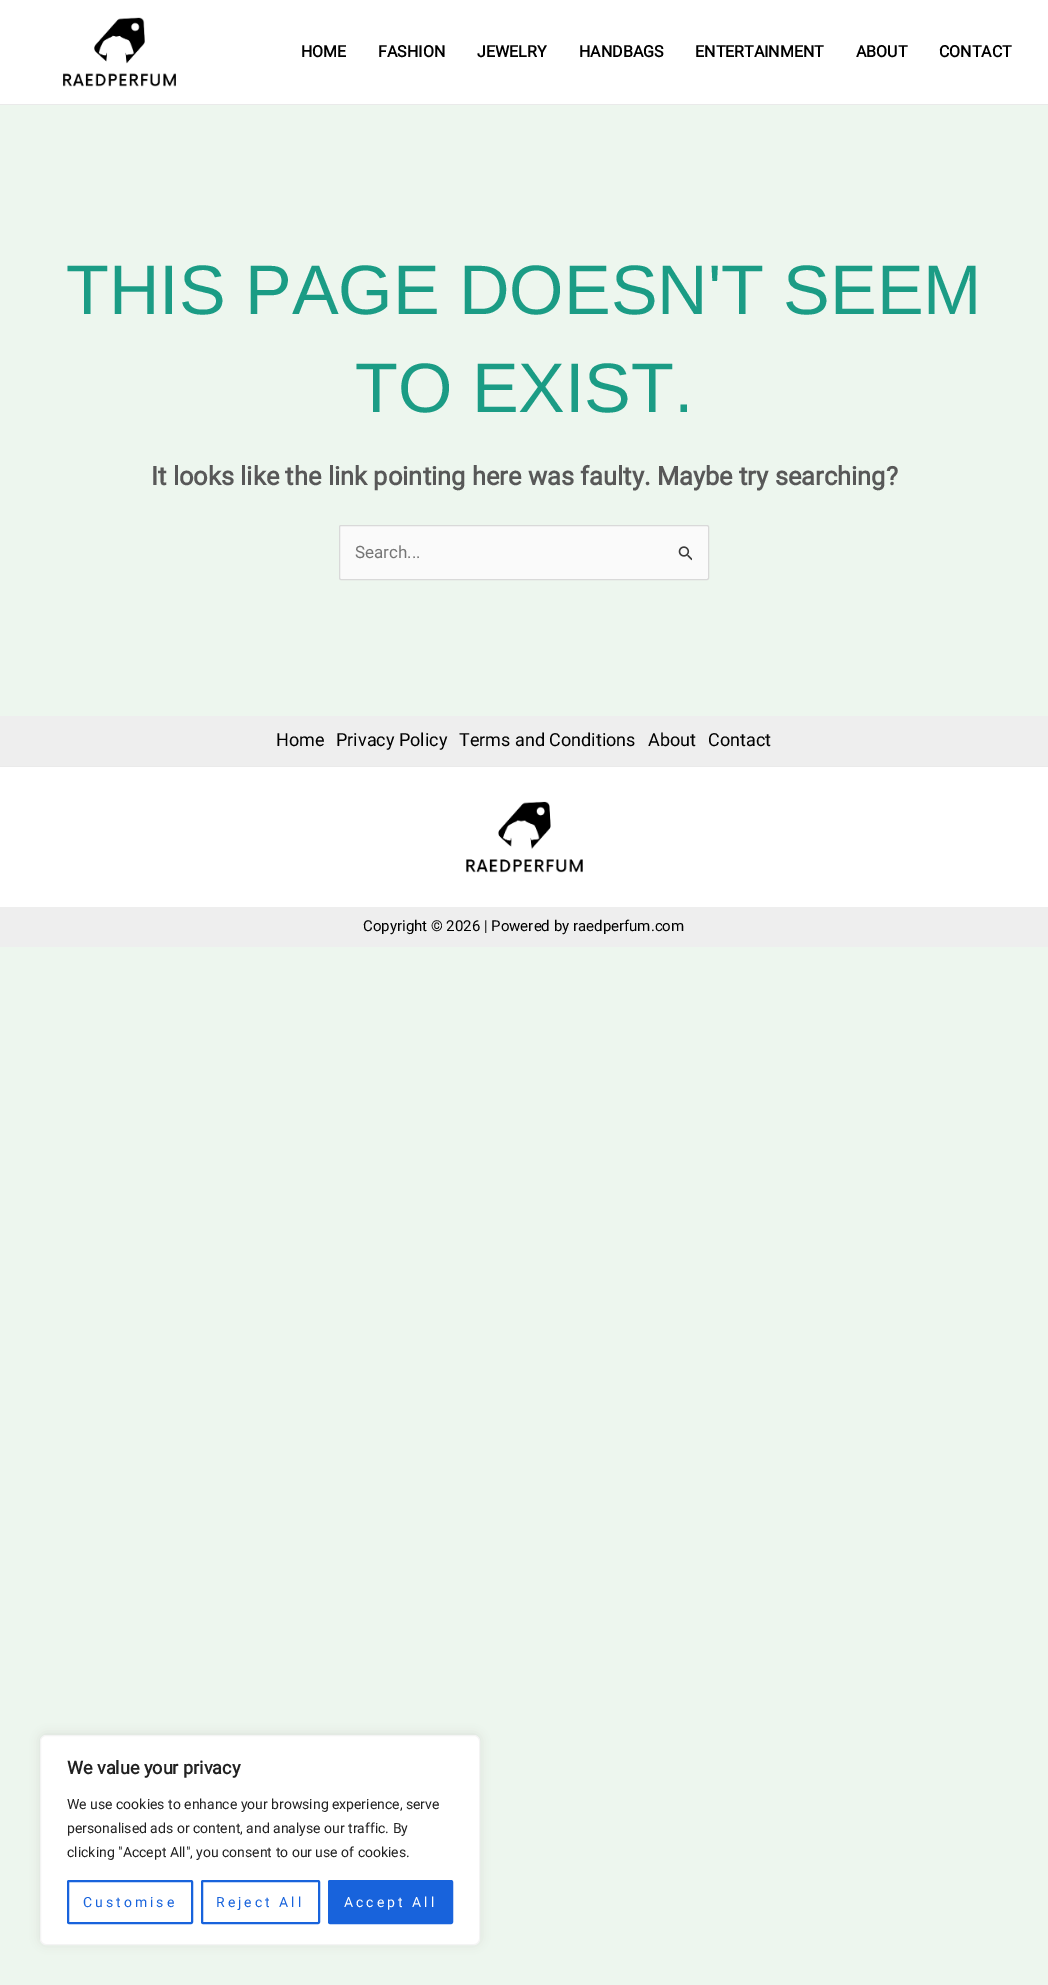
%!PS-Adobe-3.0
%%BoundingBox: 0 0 1048 1985
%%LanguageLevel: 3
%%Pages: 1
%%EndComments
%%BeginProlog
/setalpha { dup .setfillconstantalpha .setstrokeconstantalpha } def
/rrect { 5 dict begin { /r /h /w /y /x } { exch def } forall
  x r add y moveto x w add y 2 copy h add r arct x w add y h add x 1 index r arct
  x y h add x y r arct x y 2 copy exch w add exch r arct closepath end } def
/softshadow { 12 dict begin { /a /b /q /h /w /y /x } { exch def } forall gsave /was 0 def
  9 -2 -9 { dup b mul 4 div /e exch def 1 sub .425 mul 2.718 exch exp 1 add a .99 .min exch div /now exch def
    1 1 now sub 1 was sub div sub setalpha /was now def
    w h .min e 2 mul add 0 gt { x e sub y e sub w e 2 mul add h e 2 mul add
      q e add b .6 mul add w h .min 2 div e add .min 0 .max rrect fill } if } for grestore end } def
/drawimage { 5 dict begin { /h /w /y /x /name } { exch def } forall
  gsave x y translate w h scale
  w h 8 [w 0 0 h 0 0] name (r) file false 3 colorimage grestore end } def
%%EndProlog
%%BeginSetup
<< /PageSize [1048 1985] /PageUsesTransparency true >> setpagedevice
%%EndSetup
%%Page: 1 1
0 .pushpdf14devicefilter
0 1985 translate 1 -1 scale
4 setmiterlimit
0.929 0.965 0.933 setrgbcolor
0 0 1048 1985 rectfill
1 setgray
0 0 1048 104 rectfill
0.918 setgray
0 104 1048 1 rectfill
(images/1.raw) 63 17 113 70 drawimage
0.98 setgray
339.5 525.5 369 54 1.5 rrect gsave fill grestore
0.851 setgray
stroke
(images/2.raw) 678 546 14 15 drawimage
0.933 setgray
0 716 1048 50 rectfill
1 setgray
0 767 1048 140 rectfill
0.918 setgray
0 766 1048 1 rectfill
(images/3.raw) 466 801 117 72 drawimage
0.933 setgray
0 907 1048 40 rectfill
0.675 0.671 0.671 setrgbcolor
40 1734 440 210 6 5 0.3 softshadow
1 setgray
40.5 1735.5 439 209 5.5 rrect gsave fill grestore
0.957 setgray
stroke
0.094 0.388 0.863 setrgbcolor
2 setlinewidth
68 1881 124 42 1 rrect stroke
202 1881 117 42 1 rrect stroke
329 1881 123 42 1 rrect gsave fill grestore
stroke
/Roboto-Bold [16 0 0 -16 0 0] selectfont
0 setgray
301 57 moveto (HOME) show
378 57 moveto (FASHION) show
477 57 moveto (JEWELRY) show
579 57 moveto (HANDBAGS) show
695 57 moveto (ENTERTAINMENT) show
856 57 moveto (ABOUT) show
939 57 moveto (CONTACT) show
/LiberationSans-Regular [70 0 0 -70 0 0] selectfont
0.106 0.612 0.522 setrgbcolor
66 314 moveto (THIS PAGE DOESN'T SEEM) show
355 412 moveto (TO EXIST.) show
/Roboto-Bold [25.5 0 0 -25.5 0 0] selectfont
0.345 setgray
151 485 moveto (It looks like the link pointing here was faulty. Maybe try searching?) show
/Roboto-Regular [17 0 0 -17 0 0] selectfont
0.459 setgray
355 558 moveto (Search...) show
/Roboto-Regular [18 0 0 -18 0 0] selectfont
0 setgray
276 746 moveto (Home) show
336 746 moveto (Privacy Policy) show
459 746 moveto (Terms and Conditions) show
648 746 moveto (About) show
708 746 moveto (Contact) show
/Roboto-Regular [15 0 0 -15 0 0] selectfont
363 931 moveto (Copyright © 2026 | Powered by raedperfum.com) show
/Roboto-Bold [18 0 0 -18 0 0] selectfont
0.129 setgray
67 1774 moveto (We value your privacy) show
/Roboto-Regular [14 0 0 -14 0 0] selectfont
67 1809 moveto (We use cookies to enhance your browsing experience, serve) show
67 1833 moveto (personalised ads or content, and analyse our traffic. By) show
67 1857 moveto (clicking "Accept All", you consent to our use of cookies.) show
0.094 0.388 0.863 setrgbcolor
83 1907 moveto 3 0 (Customise) ashow
216 1907 moveto 3 0 (Reject All) ashow
1 setgray
344 1907 moveto 3 0 (Accept All) ashow
.poppdf14devicefilter showpage
%%EOF
